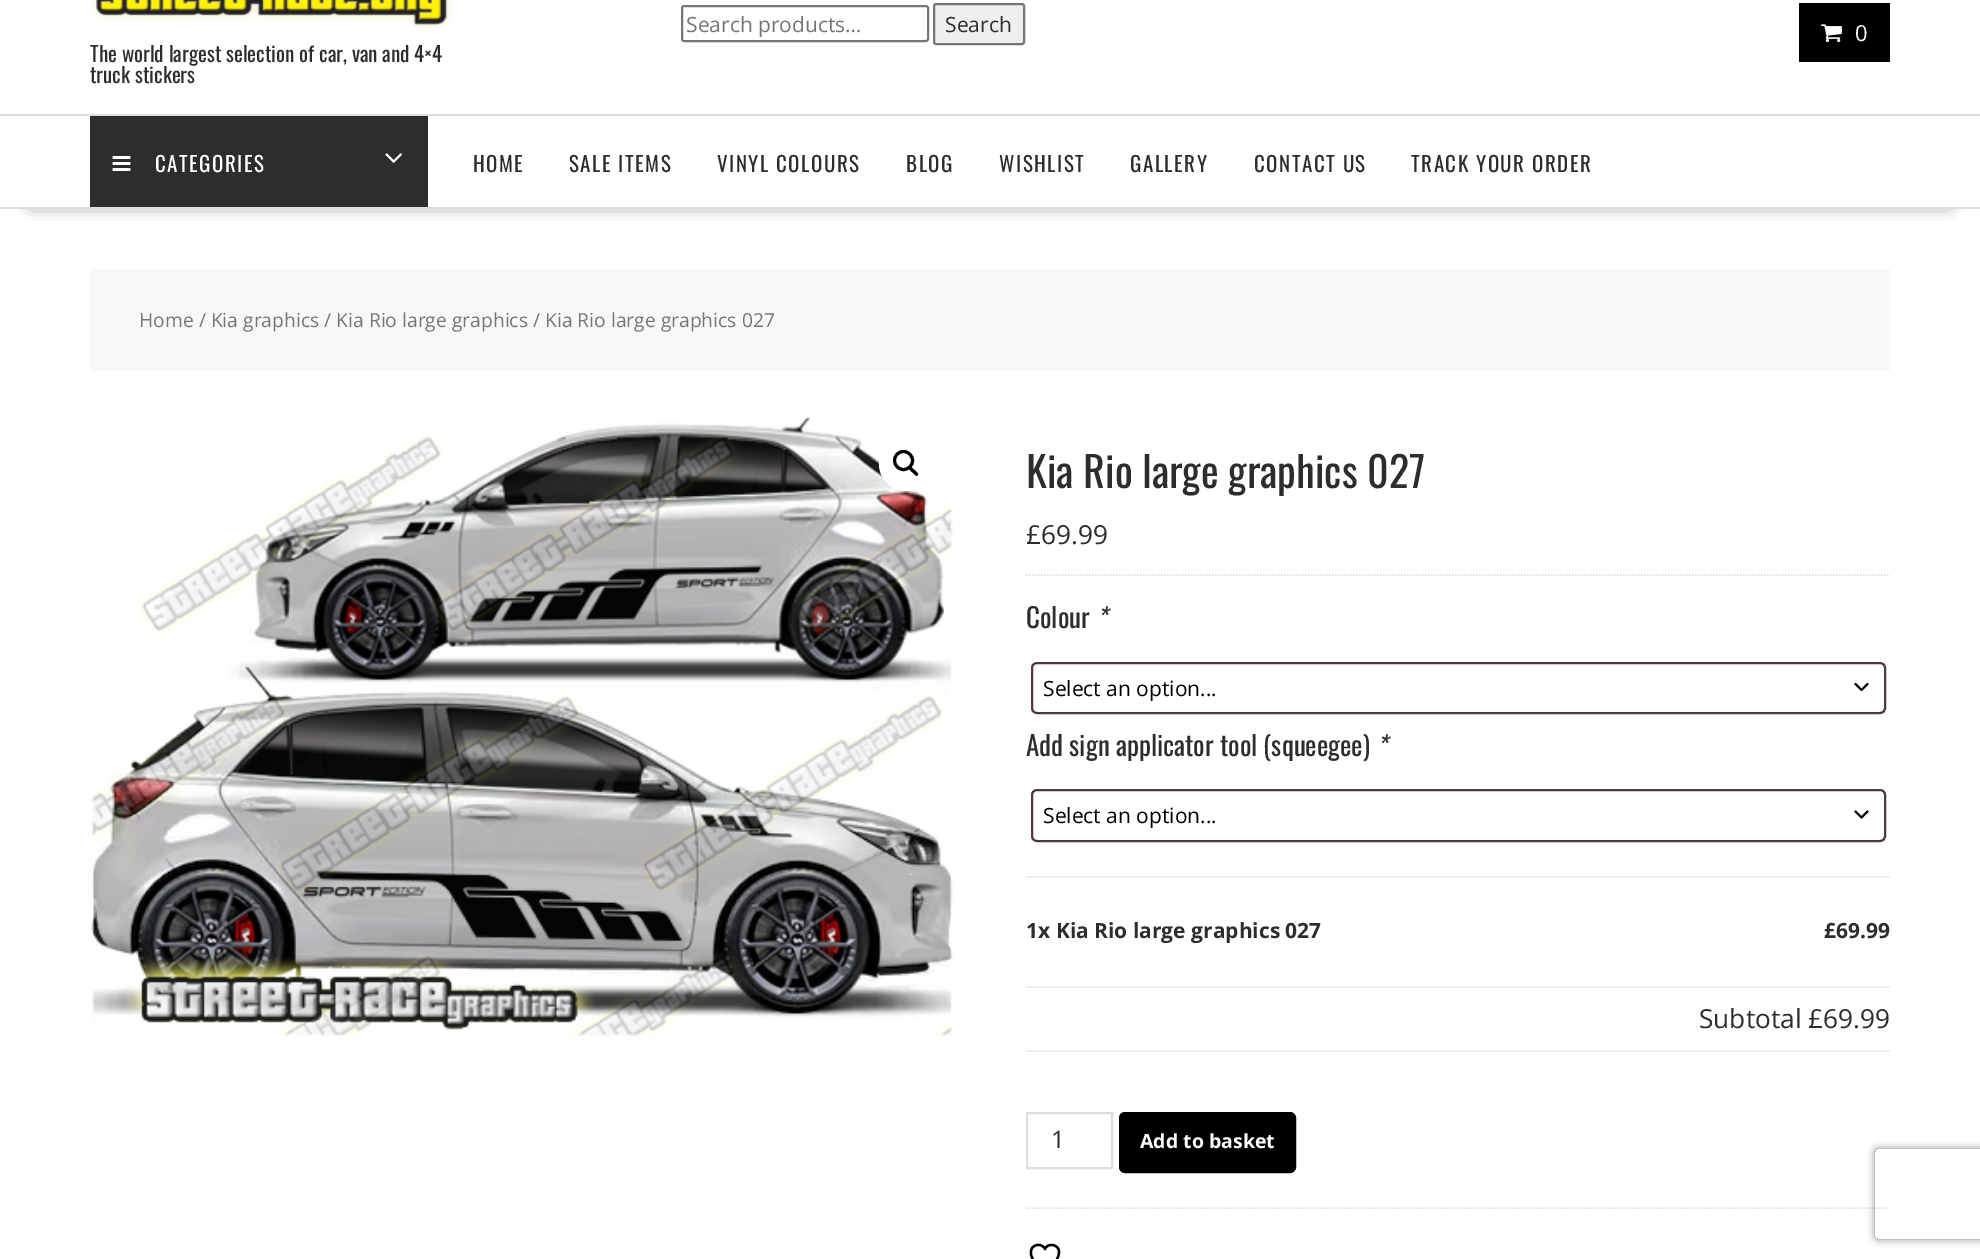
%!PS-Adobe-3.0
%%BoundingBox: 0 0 1980 1259
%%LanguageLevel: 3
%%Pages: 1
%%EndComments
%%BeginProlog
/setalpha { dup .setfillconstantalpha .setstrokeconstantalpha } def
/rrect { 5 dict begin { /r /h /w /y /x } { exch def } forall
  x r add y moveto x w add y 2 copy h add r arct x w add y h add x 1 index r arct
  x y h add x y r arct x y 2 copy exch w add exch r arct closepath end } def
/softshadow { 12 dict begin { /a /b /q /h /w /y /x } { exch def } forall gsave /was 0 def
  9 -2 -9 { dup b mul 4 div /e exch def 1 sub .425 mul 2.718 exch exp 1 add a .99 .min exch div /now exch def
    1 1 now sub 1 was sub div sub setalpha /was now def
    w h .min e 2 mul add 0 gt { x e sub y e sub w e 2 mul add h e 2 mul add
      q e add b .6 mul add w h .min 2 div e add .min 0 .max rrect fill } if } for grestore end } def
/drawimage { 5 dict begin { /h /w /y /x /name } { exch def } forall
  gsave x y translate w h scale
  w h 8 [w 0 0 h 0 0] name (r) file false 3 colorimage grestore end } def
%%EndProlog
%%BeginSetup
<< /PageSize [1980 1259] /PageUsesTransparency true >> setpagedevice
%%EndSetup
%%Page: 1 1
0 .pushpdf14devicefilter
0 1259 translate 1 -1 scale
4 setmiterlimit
1 setgray
0 0 1980 1259 rectfill
0.463 setgray
2 setlinewidth
682 6 246 35 2 rrect stroke
0.937 setgray
934 4 90 40 2 rrect gsave fill grestore
0.463 setgray
stroke
0 setgray
1799 3 91 59 rectfill
(images/1.raw) 1821 24 21 19 drawimage
(images/2.raw) 90 0 365 32 drawimage
32 171 1917 32 0 8 0.75 softshadow
1 setgray
14 153 1953 54 rectfill
0.871 setgray
0 114 1980 2 rectfill
0 207 1980 2 rectfill
0.176 setgray
90 116 338 91 rectfill
(images/3.raw) 112 156 19 15 drawimage
(images/4.raw) 385 153 17 10 drawimage
0.973 setgray
90 269 1800 102 rectfill
(images/5.raw) 91 416 862 621 drawimage
1 setgray
newpath 906 464 27 0 360 arc closepath fill
0 setgray
3 setlinewidth
newpath 903.5 460.5 9 0 360 arc closepath stroke
newpath 909.5 467 moveto 911 465.5 913.5 469.5 914.5 470 curveto 915.5 471 919.5 474 917.5 475.5 curveto 916 477 913.5 473 912.5 472.5 curveto 911.5 471.5 907.5 468.5 909.5 467 curveto closepath fill
0.867 setgray
1.5 setlinewidth
[1.5 1.5] 0 setdash
newpath 1026 575 moveto 1890 575 lineto stroke
newpath 1026 1208 moveto 1890 1208 lineto stroke
0 setgray
2 setlinewidth
1 setlinecap
1 setlinejoin
[] 0 setdash
newpath 1855.5 684 moveto 1861.5 690 lineto 1867.5 684 lineto stroke
0.302 0.224 0.224 setrgbcolor
0 setlinecap
0 setlinejoin
1032 663 853 50 5 rrect stroke
0 setgray
1 setlinecap
1 setlinejoin
newpath 1855.5 811.5 moveto 1861.5 817.5 lineto 1867.5 811.5 lineto stroke
0.302 0.224 0.224 setrgbcolor
0 setlinecap
0 setlinejoin
1032 790 853 51 5 rrect stroke
0.933 setgray
1026 876 864 2 rectfill
1026 1050 864 2 rectfill
1026 986 864 2 rectfill
0.867 setgray
1027 1113 85 55 rectstroke
0 setgray
1120 1113 175 59 5 rrect gsave fill grestore
stroke
2.3 setlinewidth
1 setlinecap
1 setlinejoin
newpath 1059 1252 moveto 1059 1244 1047.5 1242.5 1045 1249 curveto 1041 1240.5 1025 1245.5 1033 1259.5 curveto 1035.5 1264 1040 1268 1045 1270.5 curveto 1045 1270.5 1059 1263 1059 1252 curveto closepath stroke
gsave
newpath 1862 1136 moveto 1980 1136 lineto 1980 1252 lineto 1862 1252 lineto closepath 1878 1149 moveto 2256 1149 lineto 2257.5 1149 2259 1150.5 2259 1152 curveto 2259 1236 lineto 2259 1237.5 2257.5 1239 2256 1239 curveto 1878 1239 lineto 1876.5 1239 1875 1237.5 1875 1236 curveto 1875 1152 lineto 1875 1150.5 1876.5 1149 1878 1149 curveto closepath eoclip newpath
0.502 setgray
1875 1149 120 90 3 4 1 softshadow
grestore
/OpenSans-Regular [21 0 0 -21 0 0] selectfont
0.459 setgray
686 32 moveto (Search products…) show
0.176 setgray
945 32 moveto (Search) show
/OpenSans-Regular [22 0 0 -22 0 0] selectfont
1 setgray
1855 41 moveto (0) show
/Oswald-Regular [21 0 0 -21 0 0] selectfont
0.176 setgray
90 62 moveto (The world largest selection of car, van and 4×4) show
90 83 moveto (truck stickers) show
1 setgray
155 172 moveto 1.5 0 (CATEGORIES) ashow
0.176 setgray
473 172 moveto 1.5 0 (HOME) ashow
569 172 moveto 1.5 0 (SALE ITEMS) ashow
717 172 moveto 1.5 0 (VINYL COLOURS) ashow
906 172 moveto 1.5 0 (BLOG) ashow
999 172 moveto 1.5 0 (WISHLIST) ashow
1130 172 moveto 1.5 0 (GALLERY) ashow
1254 172 moveto 1.5 0 (CONTACT US) ashow
1411 172 moveto 1.5 0 (TRACK YOUR ORDER) ashow
/OpenSans-Regular [19.3 0 0 -19.3 0 0] selectfont
0.459 setgray
139 327 moveto (Home / Kia graphics / Kia Rio large graphics / Kia Rio large graphics 027) show
/Oswald-Regular [42 0 0 -42 0 0] selectfont
0.176 setgray
1026 488 moveto (Kia Rio large graphics 027) show
/OpenSans-Regular [26.25 0 0 -26.25 0 0] selectfont
1026 544 moveto (£69.99) show
/Oswald-Regular [27 0 0 -27 0 0] selectfont
1026 628 moveto (Colour) show
/Oswald-Italic [27 0 0 -27 0 0] selectfont
1096 628 moveto (*) show
/OpenSans-Regular [21 0 0 -21 0 0] selectfont
0 setgray
1043 696 moveto (Select an option...) show
/Oswald-Regular [27 0 0 -27 0 0] selectfont
0.176 setgray
1026 756 moveto (Add sign applicator tool \(squeegee\)) show
/Oswald-Italic [27 0 0 -27 0 0] selectfont
1376 756 moveto (*) show
/OpenSans-Regular [21 0 0 -21 0 0] selectfont
0 setgray
1043 823 moveto (Select an option...) show
/OpenSans-Bold [21 0 0 -21 0 0] selectfont
0.176 setgray
1026 938 moveto (1x Kia Rio large graphics 027) show
1824 938 moveto (£69.99) show
/OpenSans-Regular [26.25 0 0 -26.25 0 0] selectfont
1699 1028 moveto (Subtotal £69.99) show
/OpenSans-Regular [24 0 0 -24 0 0] selectfont
1051 1148 moveto (1) show
/OpenSans-Bold [19.5 0 0 -19.5 0 0] selectfont
1 setgray
1140 1148 moveto (Add to basket) show
.poppdf14devicefilter showpage
%%EOF
